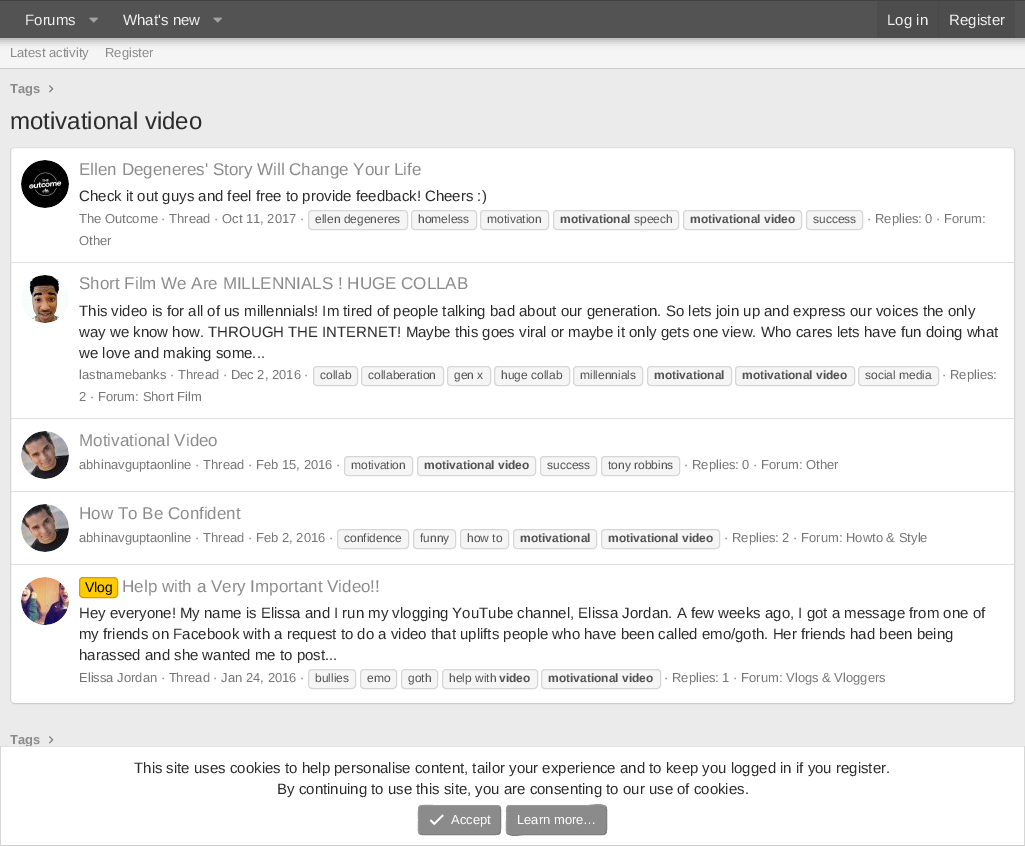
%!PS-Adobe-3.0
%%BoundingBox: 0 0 1025 846
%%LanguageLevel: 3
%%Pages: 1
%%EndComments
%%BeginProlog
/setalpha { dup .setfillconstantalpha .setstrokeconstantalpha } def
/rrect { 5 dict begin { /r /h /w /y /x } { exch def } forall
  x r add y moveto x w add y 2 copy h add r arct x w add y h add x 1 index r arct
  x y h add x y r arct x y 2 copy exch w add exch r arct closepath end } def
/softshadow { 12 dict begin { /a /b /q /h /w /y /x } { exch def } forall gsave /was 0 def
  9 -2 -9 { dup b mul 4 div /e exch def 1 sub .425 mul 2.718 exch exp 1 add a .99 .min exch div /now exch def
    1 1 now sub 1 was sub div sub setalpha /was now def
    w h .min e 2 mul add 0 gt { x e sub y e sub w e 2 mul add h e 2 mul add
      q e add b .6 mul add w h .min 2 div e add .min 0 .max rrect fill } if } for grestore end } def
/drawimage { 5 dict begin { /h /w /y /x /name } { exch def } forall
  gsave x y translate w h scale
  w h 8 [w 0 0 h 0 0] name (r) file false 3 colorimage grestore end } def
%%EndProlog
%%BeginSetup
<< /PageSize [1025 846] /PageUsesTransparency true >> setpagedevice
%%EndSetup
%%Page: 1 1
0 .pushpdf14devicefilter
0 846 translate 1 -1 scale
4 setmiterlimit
0.922 setgray
0 0 1025 846 rectfill
0.325 setgray
0 0 1025 1 rectfill
0.961 setgray
0 38 1025 30 rectfill
0 setgray
-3 -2 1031 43 0 4 0.3 softshadow
0.325 setgray
0 1 1025 37 rectfill
(images/1.raw) 89 17 9 6 drawimage
(images/1.raw) 213 17 9 6 drawimage
0.302 setgray
877 1 138 37 rectfill
0.282 setgray
938 1 1 37 rectfill
0.8 setgray
0 68 1025 1 rectfill
(images/2.raw) 49 85 5 8 drawimage
1 setgray
10 147 1005 557 4 rrect fill
0.878 setgray
newpath 11.5 148.5 moveto 14 147.5 lineto 1011 147.5 lineto 1013.5 148.5 lineto stroke
0.839 setgray
newpath 1013.5 148.5 moveto 1014 149 1014.5 150 1014.5 151 curveto 1014.5 700 lineto 1014.5 701 1014 702 1013.5 702.5 curveto stroke
0.8 setgray
newpath 1013.5 702.5 moveto 1011 703.5 lineto 14 703.5 lineto 11.5 702.5 lineto stroke
0.839 setgray
newpath 11.5 702.5 moveto 11 702 10.5 701 10.5 700 curveto 10.5 151 lineto 10.5 150 11 149 11.5 148.5 curveto stroke
(images/3.raw) 21 160 48 48 drawimage
0.961 setgray
308.5 210.5 99 19 3.5 rrect gsave fill grestore
0.839 setgray
stroke
0.961 setgray
411.5 210.5 65 19 3.5 rrect gsave fill grestore
0.839 setgray
stroke
0.961 setgray
480.5 210.5 68 19 3.5 rrect gsave fill grestore
0.839 setgray
stroke
0.961 setgray
553.5 210.5 125 19 3.5 rrect gsave fill grestore
0.839 setgray
stroke
0.961 setgray
683.5 210.5 118 19 3.5 rrect gsave fill grestore
0.839 setgray
stroke
0.961 setgray
806.5 210.5 56 19 3.5 rrect gsave fill grestore
0.839 setgray
stroke
0.878 setgray
11 262 1003 1 rectfill
(images/4.raw) 21 275 48 48 drawimage
0.961 setgray
313.5 366.5 44 19 3.5 rrect gsave fill grestore
0.839 setgray
stroke
0.961 setgray
361.5 366.5 82 19 3.5 rrect gsave fill grestore
0.839 setgray
stroke
0.961 setgray
447.5 366.5 43 19 3.5 rrect gsave fill grestore
0.839 setgray
stroke
0.961 setgray
494.5 366.5 75 19 3.5 rrect gsave fill grestore
0.839 setgray
stroke
0.961 setgray
573.5 366.5 69 19 3.5 rrect gsave fill grestore
0.839 setgray
stroke
0.961 setgray
647.5 366.5 84 19 3.5 rrect gsave fill grestore
0.839 setgray
stroke
0.961 setgray
735.5 366.5 119 19 3.5 rrect gsave fill grestore
0.839 setgray
stroke
0.961 setgray
858.5 366.5 80 19 3.5 rrect gsave fill grestore
0.839 setgray
stroke
0.878 setgray
11 418 1003 1 rectfill
(images/5.raw) 21 431 48 48 drawimage
0.961 setgray
344.5 456.5 68 19 3.5 rrect gsave fill grestore
0.839 setgray
stroke
0.961 setgray
417.5 456.5 118 19 3.5 rrect gsave fill grestore
0.839 setgray
stroke
0.961 setgray
540.5 456.5 56 19 3.5 rrect gsave fill grestore
0.839 setgray
stroke
0.961 setgray
601.5 456.5 78 19 3.5 rrect gsave fill grestore
0.839 setgray
stroke
0.878 setgray
11 491 1003 1 rectfill
(images/6.raw) 21 504 48 48 drawimage
0.961 setgray
337.5 529.5 71 19 3.5 rrect gsave fill grestore
0.839 setgray
stroke
0.961 setgray
413.5 529.5 42 19 3.5 rrect gsave fill grestore
0.839 setgray
stroke
0.961 setgray
460.5 529.5 48 19 3.5 rrect gsave fill grestore
0.839 setgray
stroke
0.961 setgray
513.5 529.5 83 19 3.5 rrect gsave fill grestore
0.839 setgray
stroke
0.961 setgray
601.5 529.5 118 19 3.5 rrect gsave fill grestore
0.839 setgray
stroke
0.878 setgray
11 564 1003 1 rectfill
(images/7.raw) 21 577 48 48 drawimage
1 0.796 0 setrgbcolor
79.5 577.5 38 20 3.5 rrect gsave fill grestore
0.8 0.635 0 setrgbcolor
stroke
0.961 setgray
308.5 669.5 47 19 3.5 rrect gsave fill grestore
0.839 setgray
stroke
0.961 setgray
360.5 669.5 36 19 3.5 rrect gsave fill grestore
0.839 setgray
stroke
0.961 setgray
401.5 669.5 36 19 3.5 rrect gsave fill grestore
0.839 setgray
stroke
0.961 setgray
442.5 669.5 95 19 3.5 rrect gsave fill grestore
0.839 setgray
stroke
0.961 setgray
541.5 669.5 119 19 3.5 rrect gsave fill grestore
0.839 setgray
stroke
(images/2.raw) 49 736 5 8 drawimage
1 setgray
1 747 1023 98 rectfill
0.545 setgray
418 805 83 30 4 rrect fill
0.494 setgray
newpath 499.5 806.5 moveto 501.5 808.5 500.5 817 500.5 820 curveto 500.5 837 502.5 834.5 484.5 834.5 curveto 422 834.5 lineto 419.5 833.5 lineto stroke
0.596 setgray
newpath 419.5 833.5 moveto 417.5 831.5 418.5 823 418.5 820 curveto 418.5 803 416.5 805.5 434.5 805.5 curveto 497 805.5 lineto 499.5 806.5 lineto stroke
(images/8.raw) 429 814 15 12 drawimage
0.545 setgray
506 805 101 30 4 rrect fill
0.494 setgray
newpath 605.5 806.5 moveto 607.5 808.5 606.5 817 606.5 820 curveto 606.5 827.5 lineto 606.5 830 607 834.5 603 834.5 curveto 525.5 834.5 lineto 520 834.5 513.5 837 508.5 834 curveto 507.5 833.5 lineto stroke
0.596 setgray
newpath 507.5 833.5 moveto 505.5 831.5 506.5 823 506.5 820 curveto 506.5 812.5 lineto 506.5 810 506 805.5 510 805.5 curveto 587.5 805.5 lineto 593 805.5 599.5 803 604.5 806 curveto 605.5 806.5 lineto stroke
/LiberationSans-Regular [15 0 0 -15 0 0] selectfont
0.941 setgray
25 25 moveto (Forums) show
123 25 moveto (What's new) show
887 25 moveto (Log in) show
949 25 moveto (Register) show
/LiberationSans-Regular [13 0 0 -13 0 0] selectfont
0.545 setgray
10 57 moveto (Latest activity) show
105 57 moveto (Register) show
/LiberationSans-Bold [13 0 0 -13 0 0] selectfont
10 93 moveto (Tags) show
/LiberationSans-Regular [24 0 0 -24 0 0] selectfont
0.173 setgray
10 129 moveto (motivational video) show
/LiberationSans-Regular [17 0 0 -17 0 0] selectfont
0.545 setgray
79 175 moveto (Ellen Degeneres' Story Will Change Your Life) show
/LiberationSans-Regular [15 0 0 -15 0 0] selectfont
0.173 setgray
79 201 moveto (Check it out guys and feel free to provide feedback! Cheers :\)) show
/LiberationSans-Regular [13 0 0 -13 0 0] selectfont
0.463 setgray
79 223 moveto (The Outcome · Thread · Oct 11, 2017 ·) show
/LiberationSans-Regular [12 0 0 -12 0 0] selectfont
0.318 setgray
315 223 moveto (ellen degeneres) show
418 223 moveto (homeless) show
487 223 moveto (motivation) show
/LiberationSans-Bold [12 0 0 -12 0 0] selectfont
560 223 moveto (motivational) show
/LiberationSans-Regular [12 0 0 -12 0 0] selectfont
634 223 moveto (speech) show
/LiberationSans-Bold [12 0 0 -12 0 0] selectfont
690 223 moveto (motivational video) show
/LiberationSans-Regular [12 0 0 -12 0 0] selectfont
813 223 moveto (success) show
/LiberationSans-Regular [13 0 0 -13 0 0] selectfont
0.463 setgray
867 223 moveto (· Replies: 0 · Forum:) show
79 245 moveto (Other) show
/LiberationSans-Regular [17 0 0 -17 0 0] selectfont
0.545 setgray
79 289 moveto (Short Film We Are MILLENNIALS ! HUGE COLLAB) show
/LiberationSans-Regular [15 0 0 -15 0 0] selectfont
0.173 setgray
79 316 moveto (This video is for all of us millennials! Im tired of people talking bad about our generation. So lets join up and express our voices the only) show
79 337 moveto (way we know how. THROUGH THE INTERNET! Maybe this goes viral or maybe it only gets one view. Who cares lets have fun doing what) show
79 358 moveto (we love and making some...) show
/LiberationSans-Regular [13 0 0 -13 0 0] selectfont
0.463 setgray
79 379 moveto (lastnamebanks · Thread · Dec 2, 2016 ·) show
/LiberationSans-Regular [12 0 0 -12 0 0] selectfont
0.318 setgray
320 379 moveto (collab) show
368 379 moveto (collaberation) show
454 379 moveto (gen x) show
501 379 moveto (huge collab) show
580 379 moveto (millennials) show
/LiberationSans-Bold [12 0 0 -12 0 0] selectfont
654 379 moveto (motivational) show
742 379 moveto (motivational video) show
/LiberationSans-Regular [12 0 0 -12 0 0] selectfont
865 379 moveto (social media) show
/LiberationSans-Regular [13 0 0 -13 0 0] selectfont
0.463 setgray
942 379 moveto (· Replies:) show
79 401 moveto (2 · Forum: Short Film) show
/LiberationSans-Regular [17 0 0 -17 0 0] selectfont
0.545 setgray
79 446 moveto (Motivational Video) show
/LiberationSans-Regular [13 0 0 -13 0 0] selectfont
0.463 setgray
79 469 moveto (abhinavguptaonline · Thread · Feb 15, 2016 ·) show
/LiberationSans-Regular [12 0 0 -12 0 0] selectfont
0.318 setgray
351 469 moveto (motivation) show
/LiberationSans-Bold [12 0 0 -12 0 0] selectfont
424 469 moveto (motivational video) show
/LiberationSans-Regular [12 0 0 -12 0 0] selectfont
547 469 moveto (success) show
608 469 moveto (tony robbins) show
/LiberationSans-Regular [13 0 0 -13 0 0] selectfont
0.463 setgray
684 469 moveto (· Replies: 0 · Forum: Other) show
/LiberationSans-Regular [17 0 0 -17 0 0] selectfont
0.545 setgray
79 519 moveto (How To Be Confident) show
/LiberationSans-Regular [13 0 0 -13 0 0] selectfont
0.463 setgray
79 542 moveto (abhinavguptaonline · Thread · Feb 2, 2016 ·) show
/LiberationSans-Regular [12 0 0 -12 0 0] selectfont
0.318 setgray
344 542 moveto (confidence) show
420 542 moveto (funny) show
467 542 moveto (how to) show
/LiberationSans-Bold [12 0 0 -12 0 0] selectfont
520 542 moveto (motivational) show
608 542 moveto (motivational video) show
/LiberationSans-Regular [13 0 0 -13 0 0] selectfont
0.463 setgray
724 542 moveto (· Replies: 2 · Forum: Howto & Style) show
/LiberationSans-Regular [14 0 0 -14 0 0] selectfont
0 setgray
85 592 moveto (Vlog) show
/LiberationSans-Regular [17 0 0 -17 0 0] selectfont
0.545 setgray
122 592 moveto (Help with a Very Important Video!!) show
/LiberationSans-Regular [15 0 0 -15 0 0] selectfont
0.173 setgray
79 618 moveto (Hey everyone! My name is Elissa and I run my vlogging YouTube channel, Elissa Jordan. A few weeks ago, I got a message from one of) show
79 639 moveto (my friends on Facebook with a request to do a video that uplifts people who have been called emo/goth. Her friends had been being) show
79 660 moveto (harassed and she wanted me to post...) show
/LiberationSans-Regular [13 0 0 -13 0 0] selectfont
0.463 setgray
79 682 moveto (Elissa Jordan · Thread · Jan 24, 2016 ·) show
/LiberationSans-Regular [12 0 0 -12 0 0] selectfont
0.318 setgray
315 682 moveto (bullies) show
367 682 moveto (emo) show
408 682 moveto (goth) show
449 682 moveto (help with) show
/LiberationSans-Bold [12 0 0 -12 0 0] selectfont
499 682 moveto (video) show
548 682 moveto (motivational video) show
/LiberationSans-Regular [13 0 0 -13 0 0] selectfont
0.463 setgray
664 682 moveto (· Replies: 1 · Forum: Vlogs & Vloggers) show
/LiberationSans-Bold [13 0 0 -13 0 0] selectfont
0.545 setgray
10 744 moveto (Tags) show
0.878 setgray
0 746 1025 1 rectfill
0.839 setgray
1024 746 1 100 rectfill
0.8 setgray
0 845 1025 1 rectfill
0.839 setgray
0 746 1 100 rectfill
/LiberationSans-Regular [15 0 0 -15 0 0] selectfont
0.173 setgray
134 773 moveto (This site uses cookies to help personalise content, tailor your experience and to keep you logged in if you register.) show
277 794 moveto (By continuing to use this site, you are consenting to our use of cookies.) show
/LiberationSans-Regular [13 0 0 -13 0 0] selectfont
1 setgray
451 824 moveto (Accept) show
517 824 moveto (Learn more…) show
.poppdf14devicefilter showpage
%%EOF
